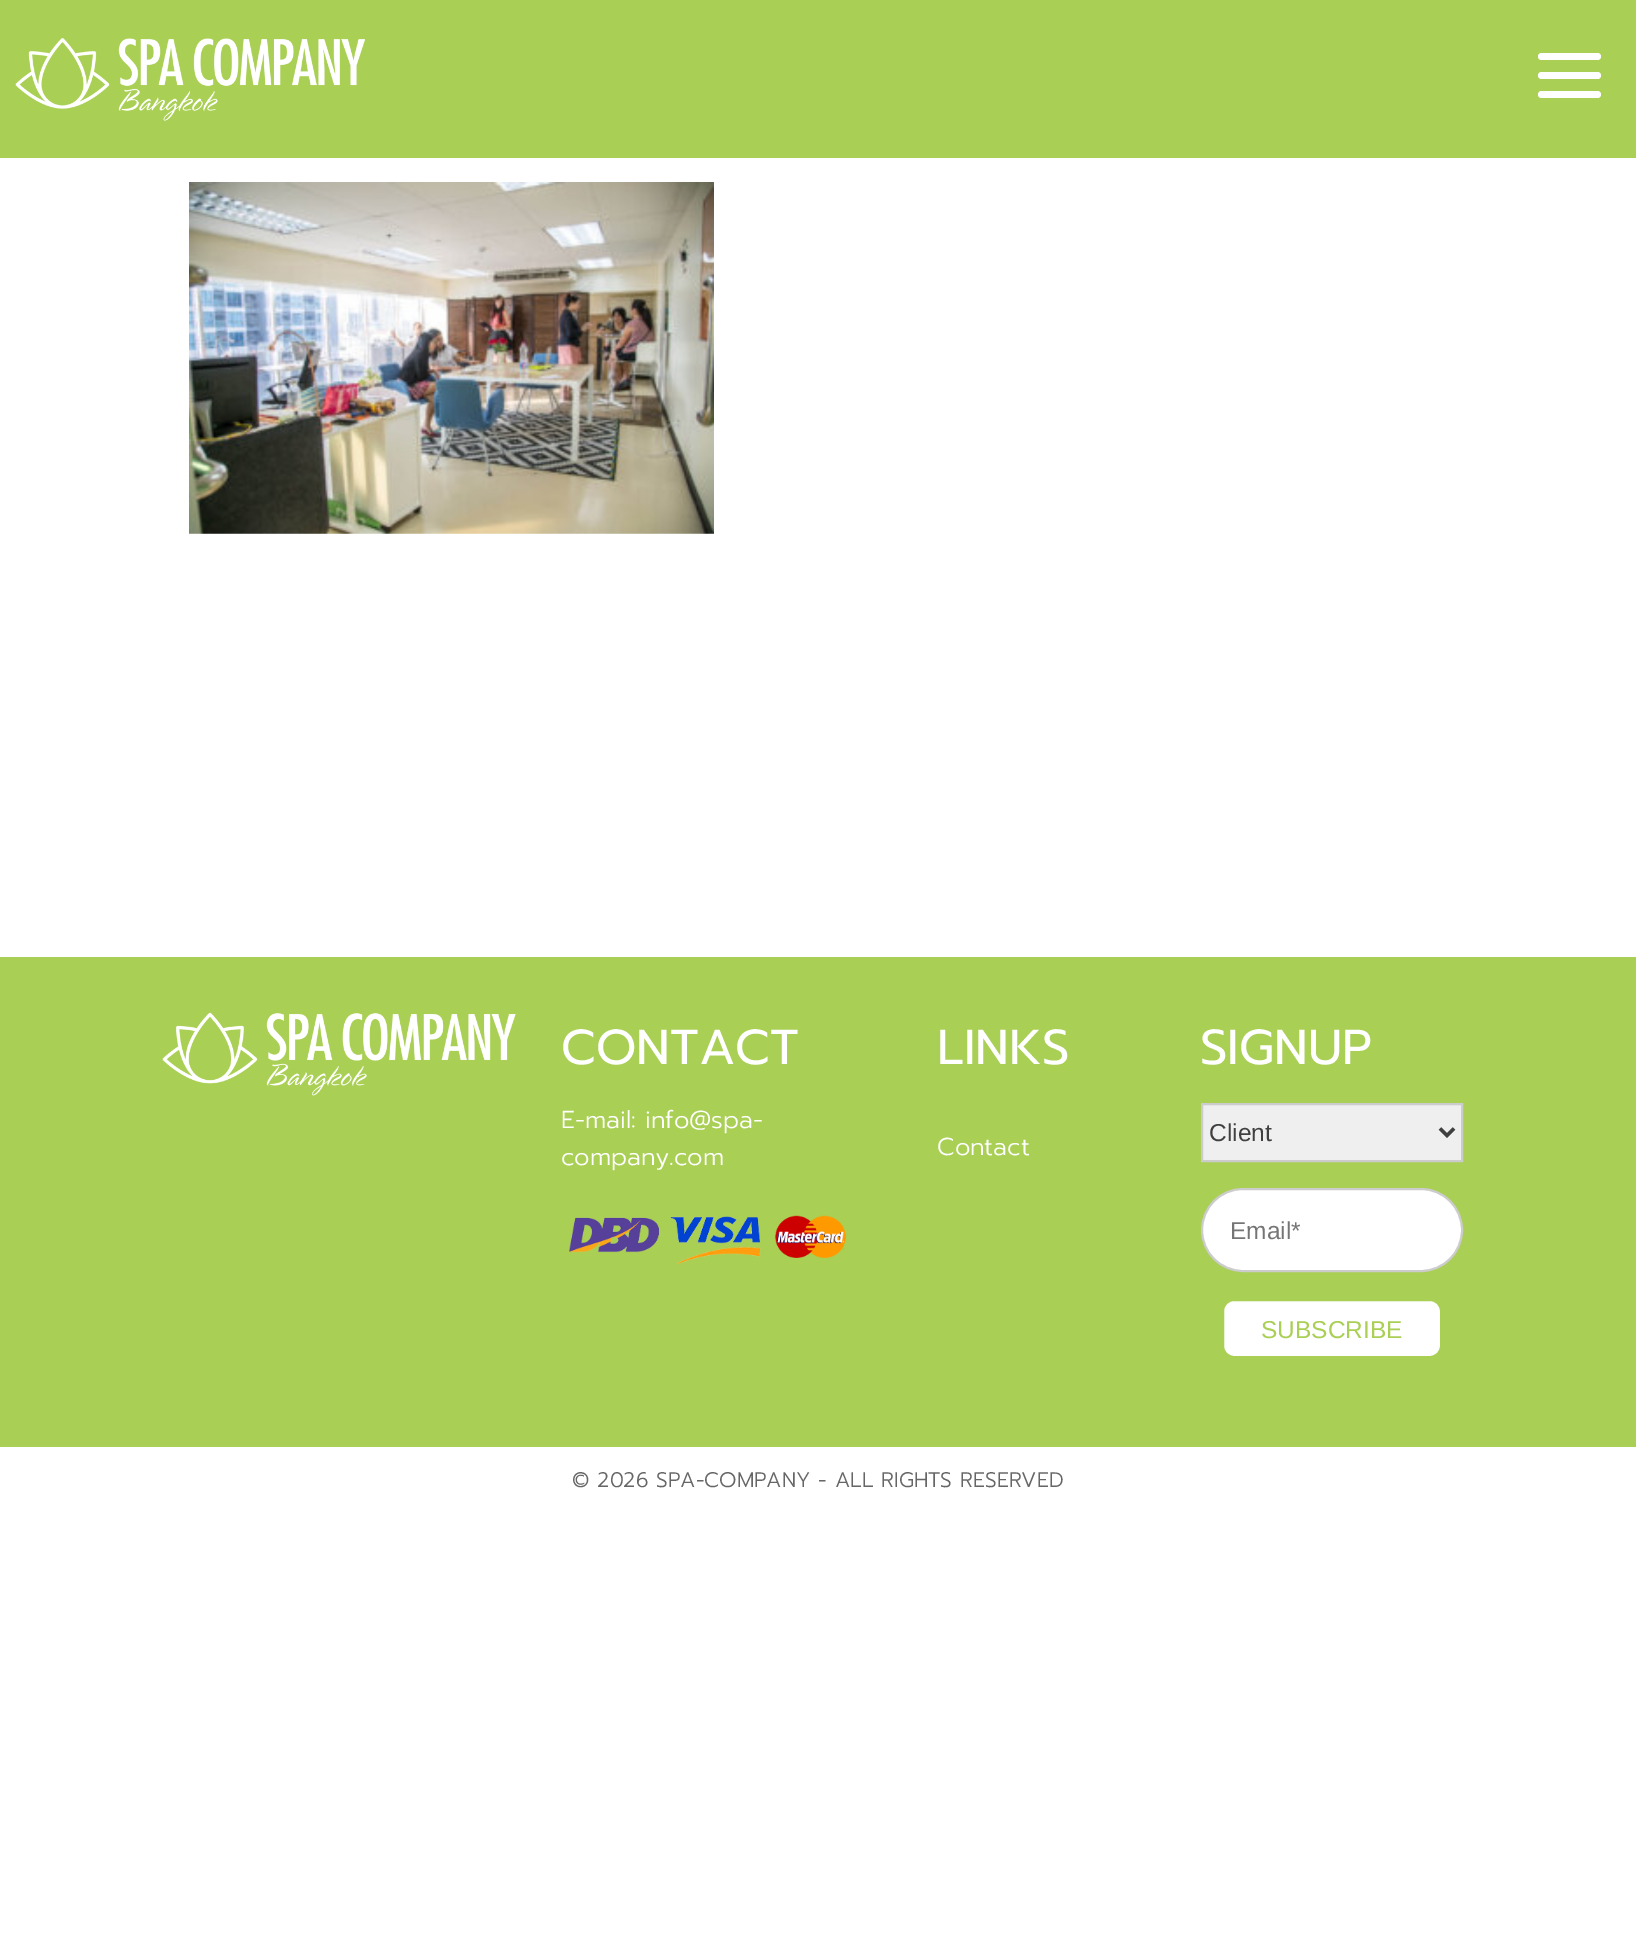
%!PS-Adobe-3.0
%%BoundingBox: 0 0 1636 1948
%%LanguageLevel: 3
%%Pages: 1
%%EndComments
%%BeginProlog
/rrect { 5 dict begin { /r /h /w /y /x } { exch def } forall
  x r add y moveto x w add y 2 copy h add r arct x w add y h add x 1 index r arct
  x y h add x y r arct x y 2 copy exch w add exch r arct closepath end } def
/drawimage { 5 dict begin { /h /w /y /x /name } { exch def } forall
  gsave x y translate w h scale
  w h 8 [w 0 0 h 0 0] name (r) file false 3 colorimage grestore end } def
%%EndProlog
%%BeginSetup
<< /PageSize [1636 1948] >> setpagedevice
%%EndSetup
%%Page: 1 1
0 1948 translate 1 -1 scale
4 setmiterlimit
1 setgray
0 0 1636 1948 rectfill
0.663 0.812 0.329 setrgbcolor
0 0 1636 158 rectfill
(images/1.raw) 15 38 350 83 drawimage
1 setgray
1538 53 63 7 3.5 rrect fill
1538 72 63 7 3.5 rrect fill
1538 91 63 7 3.5 rrect fill
(images/2.raw) 189 182 525 352 drawimage
0.663 0.812 0.329 setrgbcolor
0 957 1636 490 rectfill
(images/3.raw) 162 1012 354 84 drawimage
(images/4.raw) 569 1215 278 49 drawimage
0.937 setgray
newpath 1202 1104 moveto 1462 1104 lineto 1462 1161 lineto 1202 1161 lineto closepath gsave fill grestore
0.8 setgray
2 setlinewidth
stroke
0.251 setgray
3.5 setlinewidth
newpath 1440 1128.5 moveto 1447 1135.5 lineto 1454 1128.5 lineto stroke
1 setgray
1202 1189 260 82 41 rrect gsave fill grestore
0.8 setgray
2 setlinewidth
stroke
1 setgray
1223 1300 218 57 11 rrect gsave fill grestore
0.663 0.812 0.329 setrgbcolor
stroke
/Prompt-Regular [49 0 0 -49 0 0] selectfont
1 setgray
561 1064 moveto (CONTACT) show
/Prompt-Light [24.5 0 0 -24.5 0 0] selectfont
561 1128 moveto (E-mail: info@spa-) show
561 1165 moveto (company.com) show
/Prompt-Regular [49 0 0 -49 0 0] selectfont
937 1064 moveto (LINKS) show
/Prompt-Light [24.5 0 0 -24.5 0 0] selectfont
937 1155 moveto (Contact) show
/Prompt-Regular [49 0 0 -49 0 0] selectfont
1200 1064 moveto (SIGNUP) show
/LiberationSans-Regular [24.5 0 0 -24.5 0 0] selectfont
0.251 setgray
1209 1141 moveto (Client) show
0.459 setgray
1230 1239 moveto (Email*) show
0.663 0.812 0.329 setrgbcolor
1261 1338 moveto (SUBSCRIBE) show
/Prompt-Light [21 0 0 -21 0 0] selectfont
0.4 setgray
572 1487 moveto (© 2026 SPA-COMPANY - ALL RIGHTS RESERVED) show
showpage
%%EOF
